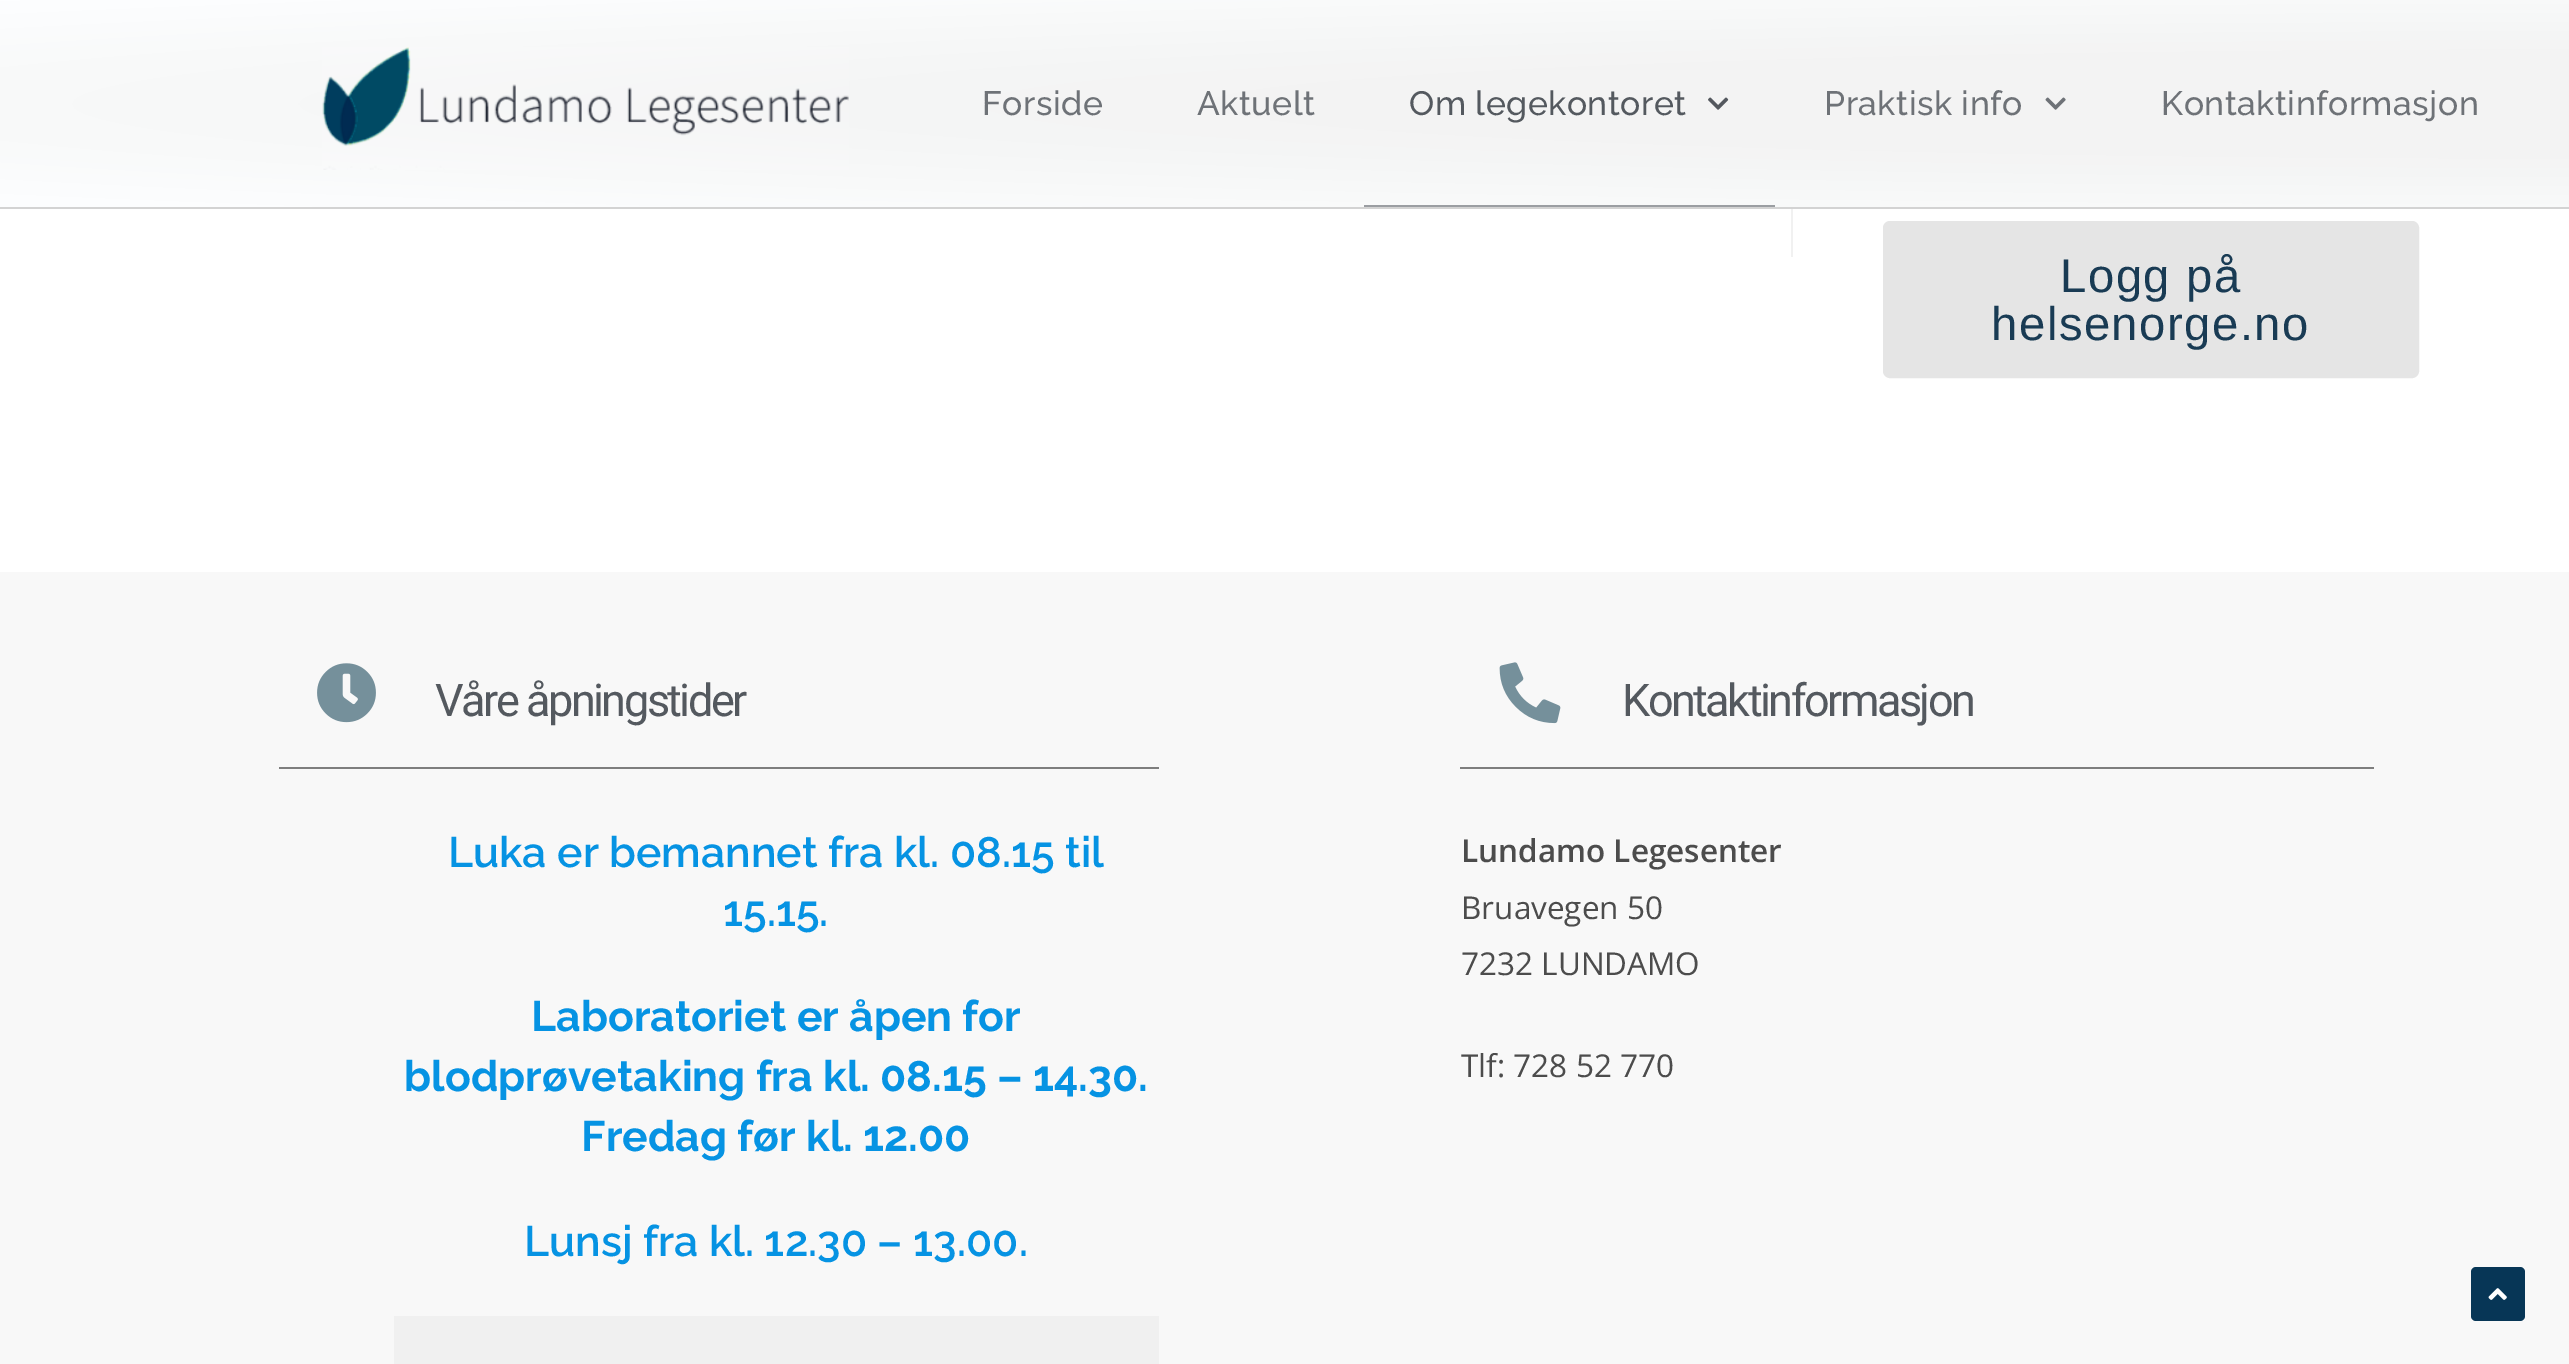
%!PS-Adobe-3.0
%%BoundingBox: 0 0 2569 1364
%%LanguageLevel: 3
%%Pages: 1
%%EndComments
%%BeginProlog
/rrect { 5 dict begin { /r /h /w /y /x } { exch def } forall
  x r add y moveto x w add y 2 copy h add r arct x w add y h add x 1 index r arct
  x y h add x y r arct x y 2 copy exch w add exch r arct closepath end } def
/drawimage { 5 dict begin { /h /w /y /x /name } { exch def } forall
  gsave x y translate w h scale
  w h 8 [w 0 0 h 0 0] name (r) file false 3 colorimage grestore end } def
%%EndProlog
%%BeginSetup
<< /PageSize [2569 1364] >> setpagedevice
%%EndSetup
%%Page: 1 1
0 1364 translate 1 -1 scale
4 setmiterlimit
1 setgray
0 0 2569 1364 rectfill
gsave newpath 0 0 moveto 2569 0 lineto 2569 207 lineto 0 207 lineto closepath clip newpath 2570 104 translate 3634 146 scale
<< /ShadingType 3 /ColorSpace /DeviceRGB /Coords [0 0 0 0 0 1] /Extend [true true] /Function << /FunctionType 3 /Domain [0 1] /Functions [<< /FunctionType 2 /Domain [0 1] /C0 [0.953 0.953 0.953] /C1 [0.953 0.953 0.953] /N 1 >> << /FunctionType 2 /Domain [0 1] /C0 [0.953 0.953 0.953] /C1 [0.992 0.996 1] /N 1 >>] /Bounds [0.34] /Encode [0 1 0 1] >> >> shfill grestore
0.827 setgray
0 207 2569 2 rectfill
(images/1.raw) 322 47 527 123 drawimage
(images/2.raw) 1708 97 21 13 drawimage
0.608 0.62 0.635 setrgbcolor
1364 205 411 2 rectfill
(images/3.raw) 2045 97 21 13 drawimage
0.945 setgray
1791 209 2 48 rectfill
0.898 setgray
1885.5 223.5 531 152 4.5 rrect gsave fill grestore
5 setlinewidth
stroke
0.973 setgray
0 572 2569 792 rectfill
(images/4.raw) 317 663 59 60 drawimage
0.494 setgray
279 767 880 2 rectfill
0.941 setgray
394 1316 765 48 rectfill
(images/5.raw) 1499 662 62 62 drawimage
0.494 setgray
1460 767 914 2 rectfill
0.027 0.212 0.337 setrgbcolor
2471 1267 54 54 5 rrect fill
(images/6.raw) 2488 1288 19 12 drawimage
/Raleway-Medium [33.75 0 0 -33.75 0 0] selectfont
0.431 0.447 0.467 setrgbcolor
982 115 moveto 0.5 0 (Forside) ashow
1197 115 moveto 0.5 0 (Aktuelt) ashow
0.329 0.349 0.373 setrgbcolor
1409 115 moveto 0.5 0 (Om legekontoret) ashow
0.431 0.447 0.467 setrgbcolor
1824 115 moveto 0.5 0 (Praktisk info) ashow
2161 115 moveto 0.5 0 (Kontaktinformasjon) ashow
/LiberationSans-Regular [47.25 0 0 -47.25 0 0] selectfont
0.098 0.231 0.329 setrgbcolor
2060 292 moveto 1.5 0 (Logg på) ashow
1991 340 moveto 1.5 0 (helsenorge.no) ashow
/Roboto-Regular [45 0 0 -45 0 0] selectfont
0.329 0.349 0.373 setrgbcolor
435 716 moveto -2.5 0 (Våre åpningstider) ashow
/Raleway-SemiBold [42.75 0 0 -42.75 0 0] selectfont
0.024 0.576 0.89 setrgbcolor
448 867 moveto (Luka er bemannet fra kl. 08.15 til) show
723 926 moveto (15.15.) show
/Raleway-Bold [42.75 0 0 -42.75 0 0] selectfont
531 1031 moveto (Laboratoriet er åpen for) show
404 1091 moveto (blodprøvetaking fra kl. 08.15 – 14.30.) show
581 1151 moveto (Fredag før kl. 12.00) show
/Raleway-SemiBold [42.75 0 0 -42.75 0 0] selectfont
524 1256 moveto (Lunsj fra kl. 12.30 – 13.00.) show
/Roboto-Regular [45 0 0 -45 0 0] selectfont
0.329 0.349 0.373 setrgbcolor
1622 716 moveto -2.5 0 (Kontaktinformasjon) ashow
/OpenSans-SemiBold [31.5 0 0 -31.5 0 0] selectfont
0.298 setgray
1461 862 moveto (Lundamo Legesenter) show
/OpenSans-Regular [31.5 0 0 -31.5 0 0] selectfont
1461 919 moveto (Bruavegen 50) show
1461 975 moveto (7232 LUNDAMO) show
1461 1077 moveto (Tlf: 728 52 770) show
showpage
%%EOF
